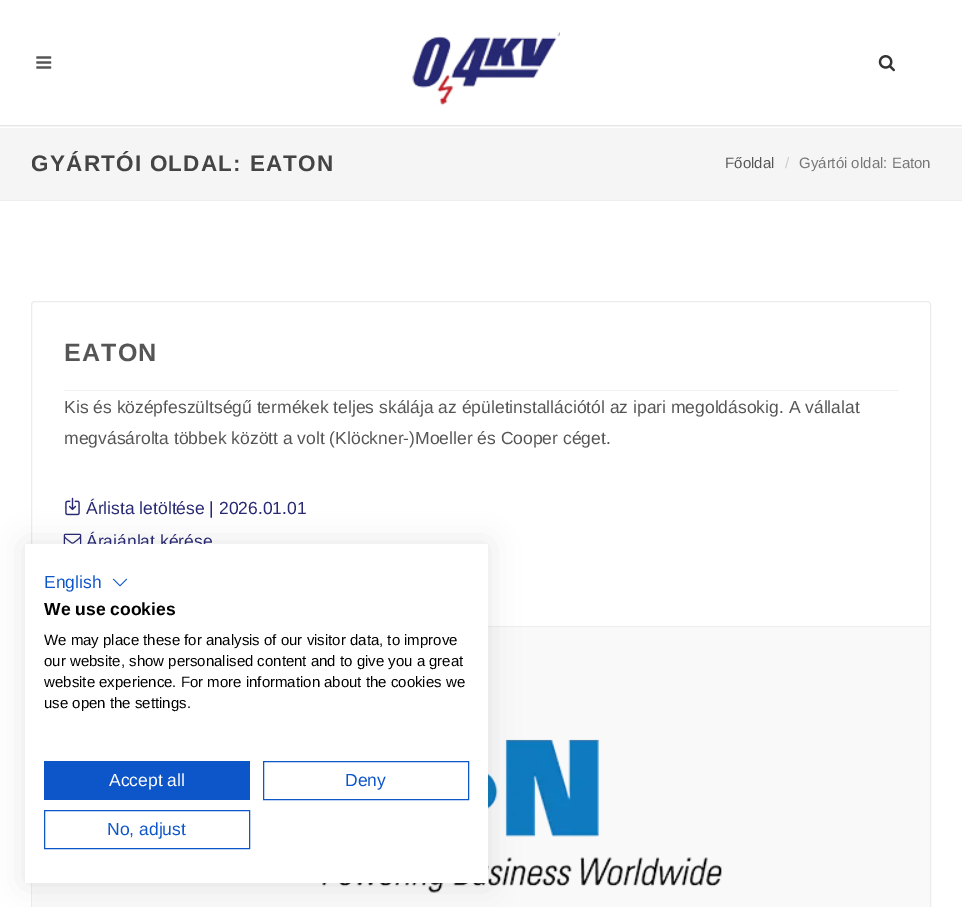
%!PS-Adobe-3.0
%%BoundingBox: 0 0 962 907
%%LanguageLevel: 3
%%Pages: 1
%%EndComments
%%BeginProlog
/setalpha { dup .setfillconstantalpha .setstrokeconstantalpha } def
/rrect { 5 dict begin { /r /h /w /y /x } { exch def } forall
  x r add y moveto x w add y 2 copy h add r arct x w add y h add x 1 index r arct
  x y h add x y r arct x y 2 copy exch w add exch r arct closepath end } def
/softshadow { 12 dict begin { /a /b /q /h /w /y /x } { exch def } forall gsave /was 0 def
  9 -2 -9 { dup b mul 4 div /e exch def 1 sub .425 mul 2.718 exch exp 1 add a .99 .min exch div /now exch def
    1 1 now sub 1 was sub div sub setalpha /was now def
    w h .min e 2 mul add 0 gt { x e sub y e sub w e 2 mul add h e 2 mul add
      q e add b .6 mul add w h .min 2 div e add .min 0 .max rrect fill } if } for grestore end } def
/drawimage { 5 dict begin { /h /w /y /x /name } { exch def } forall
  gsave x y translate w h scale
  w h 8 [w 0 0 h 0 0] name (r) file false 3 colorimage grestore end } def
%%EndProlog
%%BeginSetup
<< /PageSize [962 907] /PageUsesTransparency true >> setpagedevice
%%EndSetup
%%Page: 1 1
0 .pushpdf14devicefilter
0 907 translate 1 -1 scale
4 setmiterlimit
1 setgray
0 0 962 907 rectfill
0.961 setgray
0 126 962 1 rectfill
0.902 setgray
0 125 962 1 rectfill
(images/1.raw) 36 56 16 13 drawimage
(images/2.raw) 412 32 148 74 drawimage
(images/3.raw) 878 55 17 17 drawimage
0.961 setgray
0 128 962 72 rectfill
0.933 setgray
0 200 962 1 rectfill
0.925 setgray
31.5 301.5 899 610 3.5 rrect stroke
0.949 setgray
64 390 835 1 rectfill
(images/4.raw) 65 497 15 19 drawimage
(images/5.raw) 63 533 19 11 drawimage
0.976 setgray
33 627 897 280 rectfill
0.929 setgray
488 626 442 1 rectfill
(images/6.raw) 322 739 400 154 drawimage
0 setgray
25 544 463 339 0 15 0.1 softshadow
/LiberationSans-Bold [22.5 0 0 -22.5 0 0] selectfont
0.267 setgray
31 171 moveto 1.25 0 (GYÁRTÓI OLDAL: EATON) ashow
/LiberationSans-Regular [15 0 0 -15 0 0] selectfont
0.333 setgray
725 168 moveto (Főoldal) show
0.8 setgray
785 168 moveto (/) show
0.467 setgray
799 168 moveto (Gyártói oldal: Eaton) show
/LiberationSans-Bold [25 0 0 -25 0 0] selectfont
0.333 setgray
64 361 moveto 1.25 0 (EATON) ashow
/LiberationSans-Regular [17.5 0 0 -17.5 0 0] selectfont
64 413 moveto (Kis és középfeszültségű termékek teljes skálája az épületinstallációtól az ipari megoldásokig. A vállalat) show
64 444 moveto (megvásárolta többek között a volt \(Klöckner-\)Moeller és Cooper céget.) show
0.161 0.165 0.447 setrgbcolor
86 514 moveto (Árlista letöltése | 2026.01.01) show
86 547 moveto (Árajánlat kérése) show
1 setgray
25 544 463 339 rectfill
0.051 0.337 0.788 setrgbcolor
44 588 moveto (English) show
(images/7.raw) 112 578 16 9 drawimage
/LiberationSans-Bold [17.5 0 0 -17.5 0 0] selectfont
0 setgray
44 615 moveto (We use cookies) show
/LiberationSans-Regular [15 0 0 -15 0 0] selectfont
44 645 moveto (We may place these for analysis of our visitor data, to improve) show
44 666 moveto (our website, show personalised content and to give you a great) show
44 687 moveto (website experience. For more information about the cookies we) show
44 708 moveto (use open the settings.) show
0.051 0.337 0.788 setrgbcolor
44 761 206 39 rectfill
/LiberationSans-Regular [17.5 0 0 -17.5 0 0] selectfont
1 setgray
109 786 moveto (Accept all) show
0.051 0.337 0.788 setrgbcolor
263.5 761.5 205 38 rectstroke
345 786 moveto (Deny) show
44.5 810.5 205 38 rectstroke
107 835 moveto (No, adjust) show
.poppdf14devicefilter showpage
%%EOF
